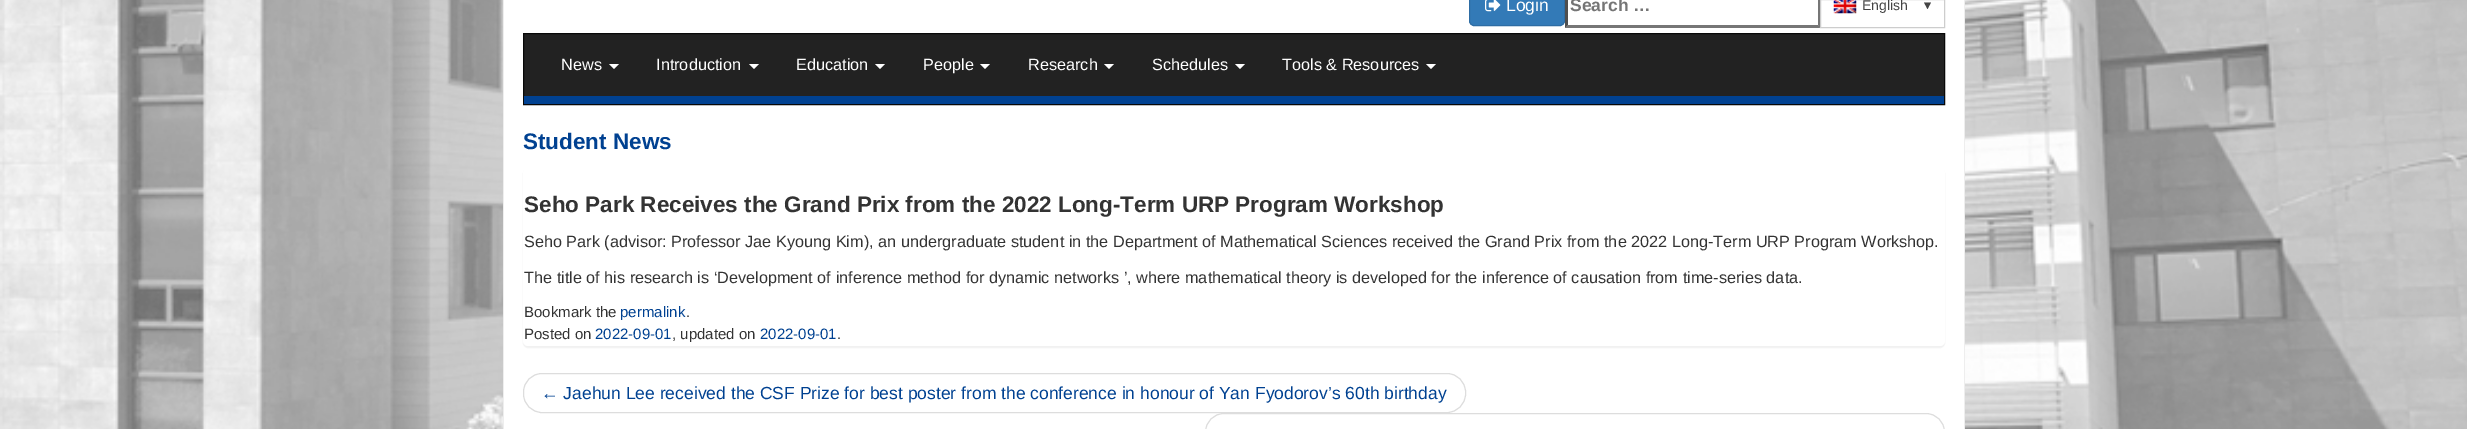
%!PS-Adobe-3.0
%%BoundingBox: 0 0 2467 429
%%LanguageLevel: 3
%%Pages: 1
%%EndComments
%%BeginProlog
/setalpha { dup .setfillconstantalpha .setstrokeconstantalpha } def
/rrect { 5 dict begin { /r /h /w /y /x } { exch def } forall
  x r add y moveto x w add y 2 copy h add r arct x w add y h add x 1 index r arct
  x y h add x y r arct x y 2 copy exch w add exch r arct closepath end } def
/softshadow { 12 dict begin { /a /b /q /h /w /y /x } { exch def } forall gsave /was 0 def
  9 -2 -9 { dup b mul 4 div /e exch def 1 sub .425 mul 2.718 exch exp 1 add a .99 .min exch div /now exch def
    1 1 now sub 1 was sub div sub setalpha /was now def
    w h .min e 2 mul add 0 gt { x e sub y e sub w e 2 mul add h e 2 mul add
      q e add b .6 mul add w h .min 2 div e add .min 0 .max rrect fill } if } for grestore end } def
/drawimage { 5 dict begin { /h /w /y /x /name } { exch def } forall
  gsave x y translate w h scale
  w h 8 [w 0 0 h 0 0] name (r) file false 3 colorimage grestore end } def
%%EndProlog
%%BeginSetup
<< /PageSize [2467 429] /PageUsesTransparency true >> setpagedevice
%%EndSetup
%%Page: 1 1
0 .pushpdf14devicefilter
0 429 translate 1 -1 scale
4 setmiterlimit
1 setgray
0 0 2467 429 rectfill
(images/1.raw) 0 0 2467 429 drawimage
504 0 1460 429 rectfill
0.933 setgray
1964 0 1 429 rectfill
503 0 1 429 rectfill
0.2 0.478 0.718 setrgbcolor
1469.5 -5.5 95 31 4.5 rrect gsave fill grestore
0.18 0.427 0.643 setrgbcolor
stroke
(images/2.raw) 1485 0 16 12 drawimage
0.463 setgray
newpath 1820 -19 moveto 1820 28 lineto 1818 25 lineto 1818 -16 lineto closepath fill
newpath 1820 28 moveto 1565 28 lineto 1568 25 lineto 1818 25 lineto closepath fill
0.31 setgray
newpath 1565 28 moveto 1565 -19 lineto 1568 -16 lineto 1568 25 lineto closepath fill
0.804 setgray
1820.5 -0.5 124 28 rectstroke
(images/3.raw) 1833 0 24 14 drawimage
0.267 setgray
newpath 1924 2.5 moveto 1931 2.5 lineto 1927.5 9 lineto closepath fill
0.133 setgray
524 34 1420 62 rectfill
0.031 setgray
523.5 33.5 1421 71 rectstroke
0 0.255 0.569 setrgbcolor
524 96 1420 8 rectfill
1 setgray
newpath 609 64 moveto 619 64 lineto 614 69 lineto closepath fill
newpath 749 64 moveto 759 64 lineto 754 69 lineto closepath fill
newpath 875 64 moveto 885 64 lineto 880 69 lineto closepath fill
newpath 980 64 moveto 990 64 lineto 985 69 lineto closepath fill
newpath 1104 64 moveto 1114 64 lineto 1109 69 lineto closepath fill
newpath 1235 64 moveto 1245 64 lineto 1240 69 lineto closepath fill
newpath 1426 64 moveto 1436 64 lineto 1431 69 lineto closepath fill
0 setgray
523 169 1422 179 5 0.5 0.05 softshadow
1 setgray
523 168 1422 178 5 rrect fill
0.867 setgray
523.5 373.5 942 39 18.5 rrect stroke
1205.5 413.5 739 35 18.5 rrect stroke
/LiberationSans-Regular [17.5 0 0 -17.5 0 0] selectfont
1 setgray
1506 11 moveto (Login) show
/LiberationSans-Bold [17.5 0 0 -17.5 0 0] selectfont
0.459 setgray
1570 11 moveto (Search …) show
/LiberationSans-Regular [14 0 0 -14 0 0] selectfont
0.267 setgray
1862 10 moveto (English) show
/LiberationSans-Regular [16.25 0 0 -16.25 0 0] selectfont
1 setgray
561 70 moveto (News) show
656 70 moveto (Introduction) show
796 70 moveto (Education) show
923 70 moveto (People) show
1028 70 moveto (Research) show
1152 70 moveto (Schedules) show
1282 70 moveto (Tools & Resources) show
/LiberationSans-Bold [22.5 0 0 -22.5 0 0] selectfont
0 0.255 0.569 setrgbcolor
523 149 moveto (Student News) show
0.2 setgray
524 212 moveto (Seho Park Receives the Grand Prix from the 2022 Long-Term URP Program Workshop) show
/LiberationSans-Regular [16.25 0 0 -16.25 0 0] selectfont
524 247 moveto (Seho Park \(advisor: Professor Jae Kyoung Kim\), an undergraduate student in the Department of Mathematical Sciences received the Grand Prix from the 2022 Long-Term URP Program Workshop.) show
524 283 moveto (The title of his research is ‘Development of inference method for dynamic networks ’, where mathematical theory is developed for the inference of causation from time-series data.) show
/LiberationSans-Regular [15 0 0 -15 0 0] selectfont
524 317 moveto (Bookmark the) show
0 0.255 0.569 setrgbcolor
620 317 moveto (permalink) show
0.2 setgray
686 317 moveto (.) show
524 339 moveto (Posted on) show
0 0.255 0.569 setrgbcolor
595 339 moveto (2022-09-01) show
0.2 setgray
672 339 moveto (, updated on) show
0 0.255 0.569 setrgbcolor
760 339 moveto (2022-09-01) show
0.2 setgray
837 339 moveto (.) show
/LiberationSans-Regular [17.5 0 0 -17.5 0 0] selectfont
0 0.255 0.569 setrgbcolor
541 399 moveto (← Jaehun Lee received the CSF Prize for best poster from the conference in honour of Yan Fyodorov’s 60th birthday) show
.poppdf14devicefilter showpage
%%EOF
